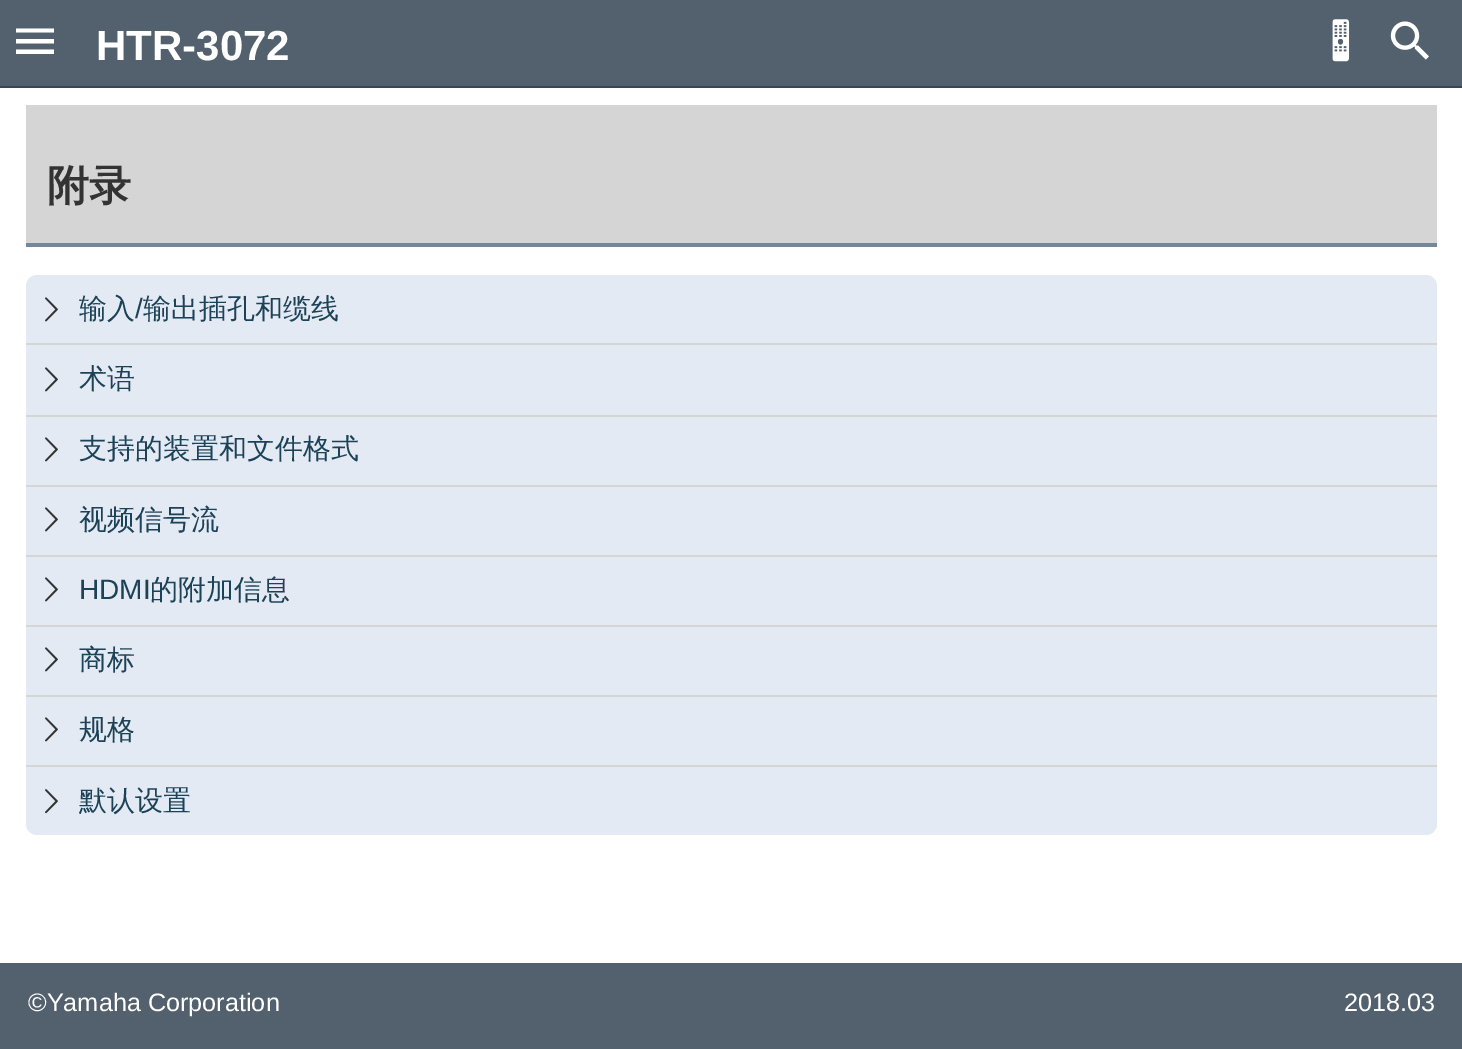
%!PS-Adobe-3.0
%%BoundingBox: 0 0 1462 1049
%%LanguageLevel: 3
%%Pages: 1
%%EndComments
%%BeginProlog
/drawimage { 5 dict begin { /h /w /y /x /name } { exch def } forall
  gsave x y translate w h scale
  w h 8 [w 0 0 h 0 0] name (r) file false 3 colorimage grestore end } def
%%EndProlog
%%BeginSetup
<< /PageSize [1462 1049] >> setpagedevice
%%EndSetup
%%Page: 1 1
0 1049 translate 1 -1 scale
4 setmiterlimit
1 setgray
0 0 1462 1049 rectfill
0.325 0.376 0.427 setrgbcolor
0 0 1462 86 rectfill
0.227 0.275 0.318 setrgbcolor
0 86 1462 2 rectfill
1 setgray
newpath 16 54 moveto 54 54 lineto 54 49.5 lineto 16 49.5 lineto closepath 16 43.5 moveto 54 43.5 lineto 54 39 lineto 16 39 lineto closepath 16 28.5 moveto 16 32.5 lineto 54 32.5 lineto 54 28.5 lineto closepath fill
(images/1.raw) 1332 19 18 43 drawimage
(images/2.raw) 1390 21 39 39 drawimage
0.835 setgray
26 105 1411 138 rectfill
0.459 0.529 0.608 setrgbcolor
26 243 1411 4 rectfill
0.894 0.918 0.953 setrgbcolor
newpath 37 275 moveto 1426 275 lineto 1432 275 1437 280 1437 286 curveto 1437 343 lineto 26 343 lineto 26 286 lineto 26 280 31 275 37 275 curveto closepath fill
(images/3.raw) 45 297 13 25 drawimage
0.835 setgray
26 343 1411 2 rectfill
0.894 0.918 0.953 setrgbcolor
26 345 1411 70 rectfill
(images/3.raw) 45 367 13 25 drawimage
0.835 setgray
26 415 1411 2 rectfill
0.894 0.918 0.953 setrgbcolor
26 417 1411 68 rectfill
(images/3.raw) 45 437 13 25 drawimage
0.835 setgray
26 485 1411 2 rectfill
0.894 0.918 0.953 setrgbcolor
26 487 1411 68 rectfill
(images/3.raw) 45 507 13 25 drawimage
0.835 setgray
26 555 1411 2 rectfill
0.894 0.918 0.953 setrgbcolor
26 557 1411 68 rectfill
(images/3.raw) 45 577 13 25 drawimage
0.835 setgray
26 625 1411 2 rectfill
0.894 0.918 0.953 setrgbcolor
26 627 1411 68 rectfill
(images/3.raw) 45 647 13 25 drawimage
0.835 setgray
26 695 1411 2 rectfill
0.894 0.918 0.953 setrgbcolor
26 697 1411 68 rectfill
(images/3.raw) 45 717 13 25 drawimage
0.835 setgray
26 765 1411 2 rectfill
0.894 0.918 0.953 setrgbcolor
newpath 26 767 moveto 1437 767 lineto 1437 824 lineto 1437 830 1432 835 1426 835 curveto 37 835 lineto 31 835 26 830 26 824 curveto closepath fill
(images/4.raw) 45 789 13 25 drawimage
0.325 0.376 0.427 setrgbcolor
0 963 1462 86 rectfill
/LiberationSans-Bold [42 0 0 -42 0 0] selectfont
1 setgray
96 60 moveto (HTR-3072) show
/WenQuanYiZenHei-Bold [42 0 0 -42 0 0] selectfont
0.2 setgray
47 200 moveto (附录) show
/WenQuanYiZenHei-Medium [28 0 0 -28 0 0] selectfont
0.11 0.259 0.341 setrgbcolor
79 318 moveto (输入) show
/LiberationSans-Regular [28 0 0 -28 0 0] selectfont
135 318 moveto (/) show
/WenQuanYiZenHei-Medium [28 0 0 -28 0 0] selectfont
143 318 moveto (输出插孔和缆线) show
79 388 moveto (术语) show
79 458 moveto (支持的装置和文件格式) show
79 529 moveto (视频信号流) show
/LiberationSans-Regular [28 0 0 -28 0 0] selectfont
79 599 moveto (HDMI) show
/WenQuanYiZenHei-Medium [28 0 0 -28 0 0] selectfont
150 599 moveto (的附加信息) show
79 669 moveto (商标) show
79 739 moveto (规格) show
79 810 moveto (默认设置) show
/LiberationSans-Regular [25.25 0 0 -25.25 0 0] selectfont
1 setgray
28 1011 moveto (©Yamaha Corporation) show
1344 1011 moveto (2018.03) show
showpage
%%EOF
